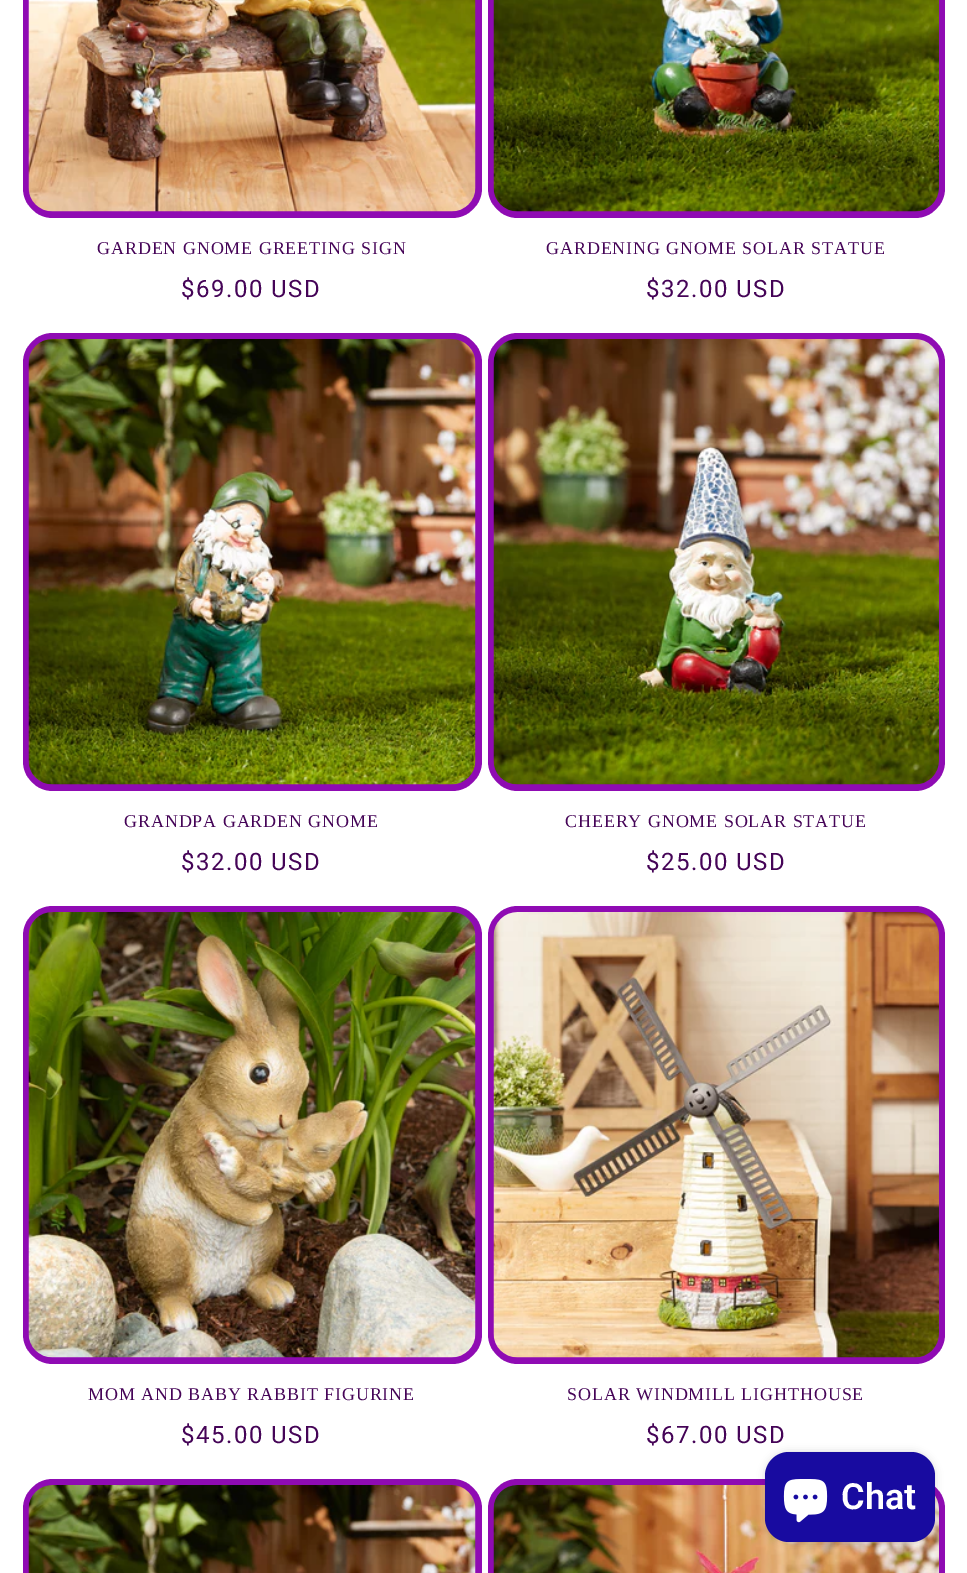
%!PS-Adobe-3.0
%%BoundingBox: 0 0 967 1573
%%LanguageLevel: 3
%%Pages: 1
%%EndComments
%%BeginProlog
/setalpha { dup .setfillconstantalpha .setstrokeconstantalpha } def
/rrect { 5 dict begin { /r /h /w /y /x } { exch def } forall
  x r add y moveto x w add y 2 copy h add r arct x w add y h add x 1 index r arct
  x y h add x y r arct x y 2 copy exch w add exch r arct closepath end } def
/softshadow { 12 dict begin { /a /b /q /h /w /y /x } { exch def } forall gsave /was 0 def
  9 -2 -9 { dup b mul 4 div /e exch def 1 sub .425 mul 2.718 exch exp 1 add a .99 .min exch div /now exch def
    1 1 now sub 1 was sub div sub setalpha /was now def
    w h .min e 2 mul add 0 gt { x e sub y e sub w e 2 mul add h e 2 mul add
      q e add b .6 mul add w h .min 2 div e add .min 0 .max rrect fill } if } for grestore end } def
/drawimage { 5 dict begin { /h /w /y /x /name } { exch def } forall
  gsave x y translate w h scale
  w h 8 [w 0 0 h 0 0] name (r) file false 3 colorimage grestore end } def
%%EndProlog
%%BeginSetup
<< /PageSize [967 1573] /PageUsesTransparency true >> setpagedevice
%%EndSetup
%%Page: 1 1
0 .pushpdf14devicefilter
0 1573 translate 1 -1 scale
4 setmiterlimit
1 setgray
0 0 967 1573 rectfill
0.561 0.043 0.702 setrgbcolor
23 -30 459 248 30 rrect fill
(images/1.raw) 28 0 448 212 drawimage
488 -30 457 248 30 rrect fill
(images/2.raw) 493 0 446 212 drawimage
23 333 459 458 30 rrect fill
(images/3.raw) 28 339 448 446 drawimage
488 333 457 458 30 rrect fill
(images/4.raw) 493 339 446 446 drawimage
23 906 459 458 30 rrect fill
(images/5.raw) 28 912 448 446 drawimage
488 906 457 458 30 rrect fill
(images/6.raw) 493 912 446 446 drawimage
23 1479 459 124 30 rrect fill
(images/7.raw) 28 1485 448 88 drawimage
488 1479 457 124 30 rrect fill
(images/8.raw) 493 1485 446 88 drawimage
0 setgray
765 1452 170 90 24 4 0.15 softshadow
0.094 0.043 0.627 setrgbcolor
765 1452 170 90 24 rrect fill
(images/9.raw) 783 1479 45 44 drawimage
/LiberationSerif-Regular [18 0 0 -18 0 0] selectfont
0.271 0.016 0.341 setrgbcolor
97 254 moveto 0.9 0 (GARDEN GNOME GREETING SIGN) ashow
/Roboto-Regular [24 0 0 -24 0 0] selectfont
181 297 moveto 1.5 0 ($69.00 USD) ashow
/LiberationSerif-Regular [18 0 0 -18 0 0] selectfont
546 254 moveto 0.9 0 (GARDENING GNOME SOLAR STATUE) ashow
/Roboto-Regular [24 0 0 -24 0 0] selectfont
646 297 moveto 1.5 0 ($32.00 USD) ashow
/LiberationSerif-Regular [18 0 0 -18 0 0] selectfont
124 827 moveto 0.9 0 (GRANDPA GARDEN GNOME) ashow
/Roboto-Regular [24 0 0 -24 0 0] selectfont
181 870 moveto 1.5 0 ($32.00 USD) ashow
/LiberationSerif-Regular [18 0 0 -18 0 0] selectfont
565 827 moveto 0.9 0 (CHEERY GNOME SOLAR STATUE) ashow
/Roboto-Regular [24 0 0 -24 0 0] selectfont
646 870 moveto 1.5 0 ($25.00 USD) ashow
/LiberationSerif-Regular [18 0 0 -18 0 0] selectfont
88 1400 moveto 0.9 0 (MOM AND BABY RABBIT FIGURINE) ashow
/Roboto-Regular [24 0 0 -24 0 0] selectfont
181 1443 moveto 1.5 0 ($45.00 USD) ashow
/LiberationSerif-Regular [18 0 0 -18 0 0] selectfont
567 1400 moveto 0.9 0 (SOLAR WINDMILL LIGHTHOUSE) ashow
/Roboto-Regular [24 0 0 -24 0 0] selectfont
646 1443 moveto 1.5 0 ($67.00 USD) ashow
/Roboto-SemiBold [36 0 0 -36 0 0] selectfont
1 setgray
841 1509 moveto (Chat) show
.poppdf14devicefilter showpage
%%EOF
